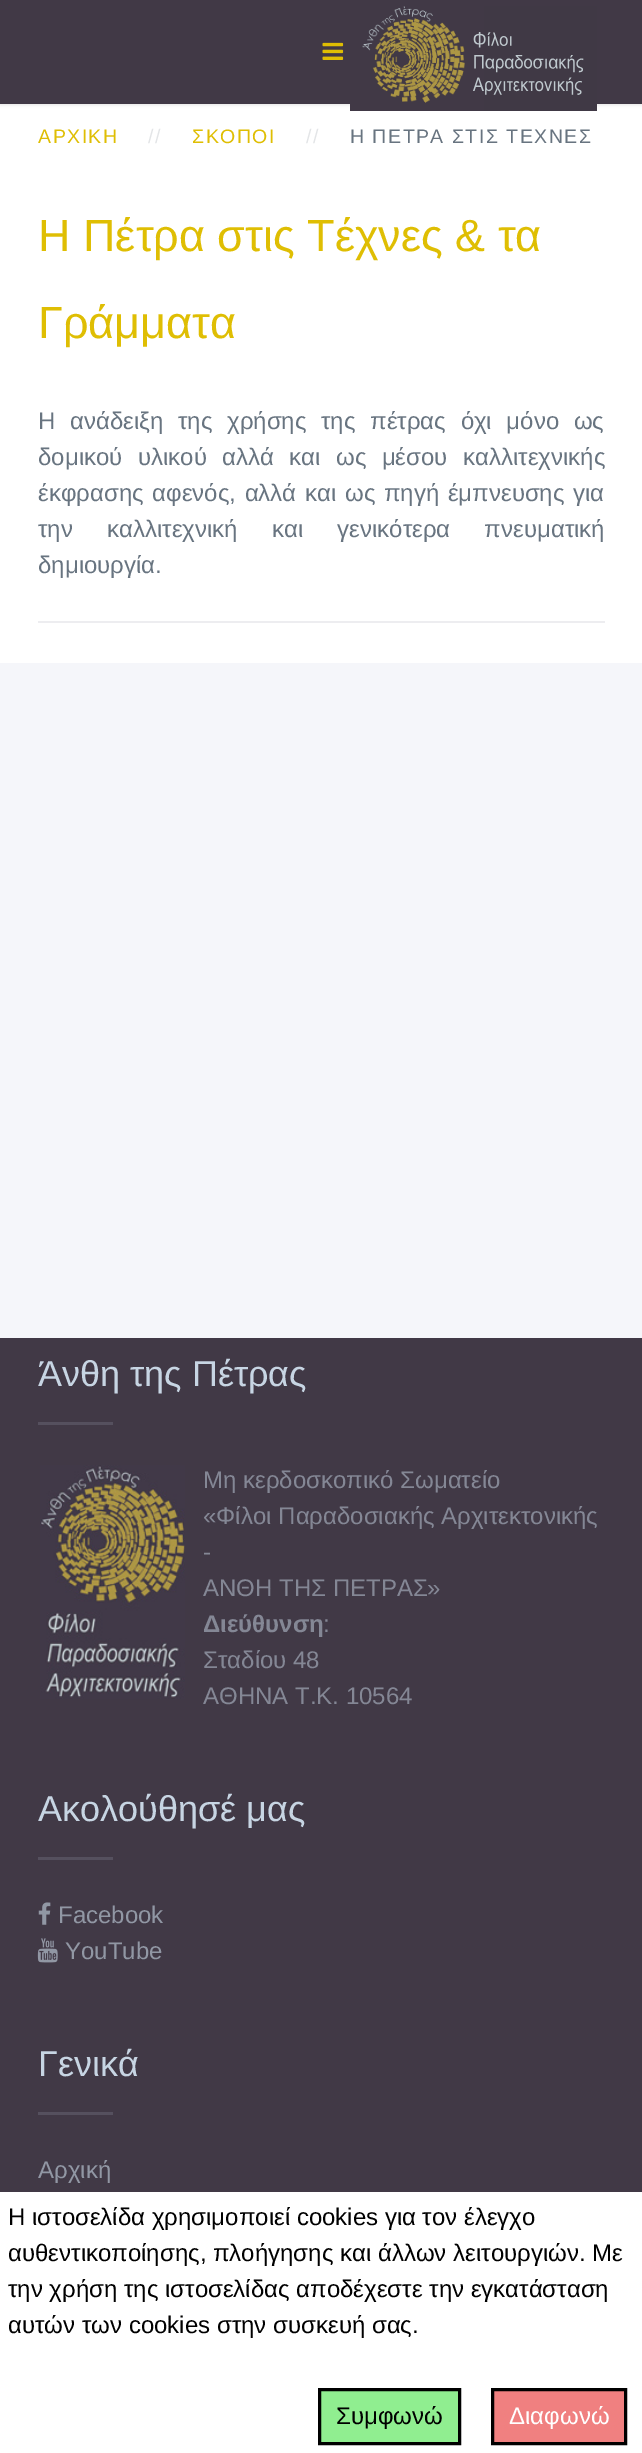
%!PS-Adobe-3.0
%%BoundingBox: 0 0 642 2453
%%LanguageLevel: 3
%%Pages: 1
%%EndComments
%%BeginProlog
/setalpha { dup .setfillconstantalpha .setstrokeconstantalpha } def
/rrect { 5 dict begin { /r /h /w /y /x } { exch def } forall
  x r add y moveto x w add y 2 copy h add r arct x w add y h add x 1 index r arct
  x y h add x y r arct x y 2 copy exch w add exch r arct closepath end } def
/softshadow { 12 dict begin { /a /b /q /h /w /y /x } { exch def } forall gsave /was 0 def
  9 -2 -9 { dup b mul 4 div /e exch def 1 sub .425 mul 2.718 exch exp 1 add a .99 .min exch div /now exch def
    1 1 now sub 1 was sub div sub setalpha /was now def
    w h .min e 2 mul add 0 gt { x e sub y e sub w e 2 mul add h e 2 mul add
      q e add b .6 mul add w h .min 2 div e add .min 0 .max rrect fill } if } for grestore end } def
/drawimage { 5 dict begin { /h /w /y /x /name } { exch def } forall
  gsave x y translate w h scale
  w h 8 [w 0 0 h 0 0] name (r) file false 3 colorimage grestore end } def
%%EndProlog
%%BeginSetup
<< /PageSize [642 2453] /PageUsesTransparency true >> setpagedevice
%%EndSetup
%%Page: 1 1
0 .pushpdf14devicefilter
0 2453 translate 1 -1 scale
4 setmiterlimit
1 setgray
0 0 642 2453 rectfill
0 setgray
0 2 642 103 0 1.5 0.1 softshadow
0.255 0.224 0.275 setrgbcolor
0 0 642 104 rectfill
(images/1.raw) 322 42 22 18 drawimage
(images/2.raw) 350 6 247 105 drawimage
0.929 0.929 0.941 setrgbcolor
38 621 567 2 rectfill
0.961 0.965 0.98 setrgbcolor
0 663 642 675 rectfill
0.255 0.224 0.275 setrgbcolor
0 1338 642 854 rectfill
0.333 0.314 0.369 setrgbcolor
38 1422 75 3 rectfill
(images/3.raw) 40 1465 145 234 drawimage
38 1857 75 3 rectfill
(images/4.raw) 38 1902 13 23 drawimage
(images/5.raw) 37 1938 21 25 drawimage
38 2112 75 3 rectfill
0.565 0.933 0.565 setrgbcolor
newpath 319.5 2389.5 moveto 459.5 2389.5 lineto 459.5 2443.5 lineto 319.5 2443.5 lineto closepath gsave fill grestore
0 setgray
3 setlinewidth
stroke
0.941 0.502 0.502 setrgbcolor
newpath 492.5 2389.5 moveto 625.5 2389.5 lineto 625.5 2443.5 lineto 492.5 2443.5 lineto closepath gsave fill grestore
0 setgray
stroke
/LiberationSans-Regular [19.5 0 0 -19.5 0 0] selectfont
0.875 0.745 0.012 setrgbcolor
38 143 moveto 1.5 0 (ΑΡΧΙΚΗ) ashow
0.89 0.898 0.906 setrgbcolor
148 143 moveto 1.5 0 (//) ashow
0.875 0.745 0.012 setrgbcolor
192 143 moveto 1.5 0 (ΣΚΟΠΟΙ) ashow
0.89 0.898 0.906 setrgbcolor
306 143 moveto 1.5 0 (//) ashow
0.408 0.455 0.502 setrgbcolor
350 143 moveto 1.5 0 (Η ΠΕΤΡΑ ΣΤΙΣ ΤΕΧΝΕΣ) ashow
/LiberationSans-Regular [45 0 0 -45 0 0] selectfont
0.875 0.745 0.012 setrgbcolor
38 251 moveto (Η Πέτρα στις Τέχνες & τα) show
38 338 moveto (Γράμματα) show
/LiberationSans-Regular [24 0 0 -24 0 0] selectfont
0.408 0.455 0.502 setrgbcolor
38 429 moveto 8 0 32 (Η ανάδειξη της χρήσης της πέτρας όχι μόνο ως) widthshow
38 465 moveto 8.75 0 32 (δομικού υλικού αλλά και ως μέσου καλλιτεχνικής) widthshow
38 501 moveto 2 0 32 (έκφρασης αφενός, αλλά και ως πηγή έμπνευσης για) widthshow
38 537 moveto 27.5 0 32 (την καλλιτεχνική και γενικότερα πνευματική) widthshow
38 573 moveto (δημιουργία.) show
/LiberationSans-Regular [36 0 0 -36 0 0] selectfont
0.78 0.835 0.89 setrgbcolor
38 1386 moveto (Άνθη της Πέτρας) show
/LiberationSans-Regular [24 0 0 -24 0 0] selectfont
0.518 0.529 0.584 setrgbcolor
203 1488 moveto (Μη κερδοσκοπικό Σωματείο) show
203 1524 moveto («Φίλοι Παραδοσιακής Αρχιτεκτονικής) show
203 1560 moveto (-) show
203 1596 moveto (ΑΝΘΗ ΤΗΣ ΠΕΤΡΑΣ») show
/LiberationSans-Bold [24 0 0 -24 0 0] selectfont
203 1632 moveto (Διεύθυνση) show
/LiberationSans-Regular [24 0 0 -24 0 0] selectfont
323 1632 moveto (:) show
203 1668 moveto (Σταδίου 48) show
203 1704 moveto (ΑΘΗΝΑ Τ.Κ. 10564) show
/LiberationSans-Regular [36 0 0 -36 0 0] selectfont
0.78 0.835 0.89 setrgbcolor
38 1821 moveto (Ακολούθησέ μας) show
/LiberationSans-Regular [24 0 0 -24 0 0] selectfont
0.569 0.592 0.643 setrgbcolor
58 1923 moveto (Facebook) show
65 1959 moveto (YouTube) show
/LiberationSans-Regular [36 0 0 -36 0 0] selectfont
0.78 0.835 0.89 setrgbcolor
38 2076 moveto (Γενικά) show
/LiberationSans-Regular [24 0 0 -24 0 0] selectfont
0.569 0.592 0.643 setrgbcolor
38 2178 moveto (Αρχική) show
0 setgray
8 2225 moveto (Η ιστοσελίδα χρησιμοποιεί cookies για τον έλεγχο) show
8 2261 moveto (αυθεντικοποίησης, πλοήγησης και άλλων λειτουργιών. Με) show
8 2297 moveto (την χρήση της ιστοσελίδας αποδέχεστε την εγκατάσταση) show
8 2333 moveto (αυτών των cookies στην συσκευή σας.) show
336 2424 moveto (Συμφωνώ) show
1 setgray
509 2424 moveto (Διαφωνώ) show
.poppdf14devicefilter showpage
%%EOF
